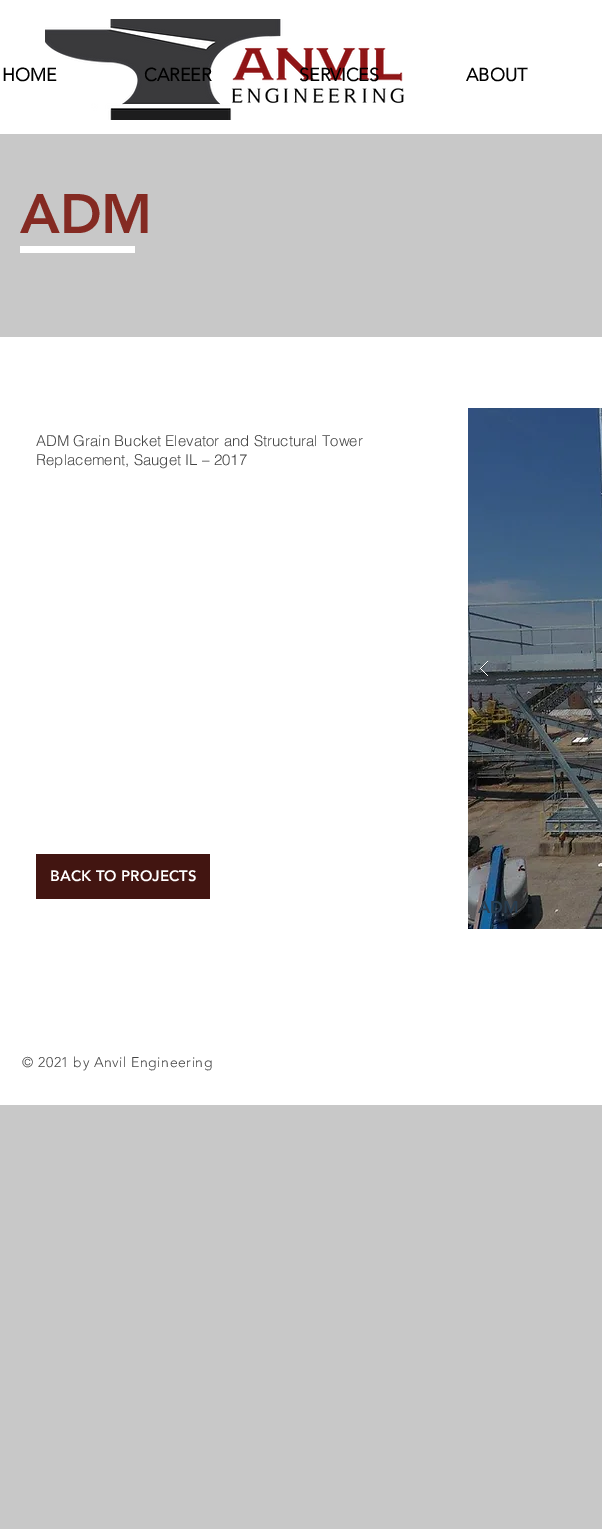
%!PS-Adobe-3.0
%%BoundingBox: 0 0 602 1529
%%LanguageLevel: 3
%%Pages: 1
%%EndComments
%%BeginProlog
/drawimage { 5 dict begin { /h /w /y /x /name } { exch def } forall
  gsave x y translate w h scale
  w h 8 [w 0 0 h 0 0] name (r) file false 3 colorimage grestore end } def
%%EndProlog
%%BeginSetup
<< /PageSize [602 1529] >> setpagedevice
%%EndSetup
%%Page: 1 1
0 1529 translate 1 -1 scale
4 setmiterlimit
0.784 setgray
0 0 602 1529 rectfill
1 setgray
0 0 602 134 rectfill
(images/1.raw) 45 19 359 101 drawimage
20 246 115 7 rectfill
0 337 602 768 rectfill
0.259 0.082 0.067 setrgbcolor
36 854 174 45 rectfill
(images/3.raw) 468 408 134 521 drawimage
(images/2.raw) 480 661 8 16 drawimage
/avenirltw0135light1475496-Bold [18 0 0 -18 0 0] selectfont
0 setgray
2 81 moveto (HOME) show
144 81 moveto (CAREER) show
299 81 moveto (SERVICES) show
466 81 moveto (ABOUT) show
/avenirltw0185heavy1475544-Black [55 0 0 -55 0 0] selectfont
0.518 0.165 0.133 setrgbcolor
20 233 moveto (ADM) show
/helvetica-Light [15 0 0 -15 0 0] selectfont
0.271 setgray
36 446 moveto (ADM Grain Bucket Elevator and Structural Tower) show
36 465 moveto (Replacement, Sauget IL – 2017) show
/avenirltw0185heavy1475544-Black [15 0 0 -15 0 0] selectfont
1 setgray
50 881 moveto (BACK TO PROJECTS) show
/avenirltw0185heavy1475544-Black [17 0 0 -17 0 0] selectfont
0.161 0.239 0.31 setrgbcolor
478 913 moveto (ADM) show
/avenirltw0135light1475496-Light [14 0 0 -14 0 0] selectfont
0.271 setgray
22 1067 moveto 0.55 0 (© 2021 by Anvil Engineering) ashow
showpage
%%EOF
